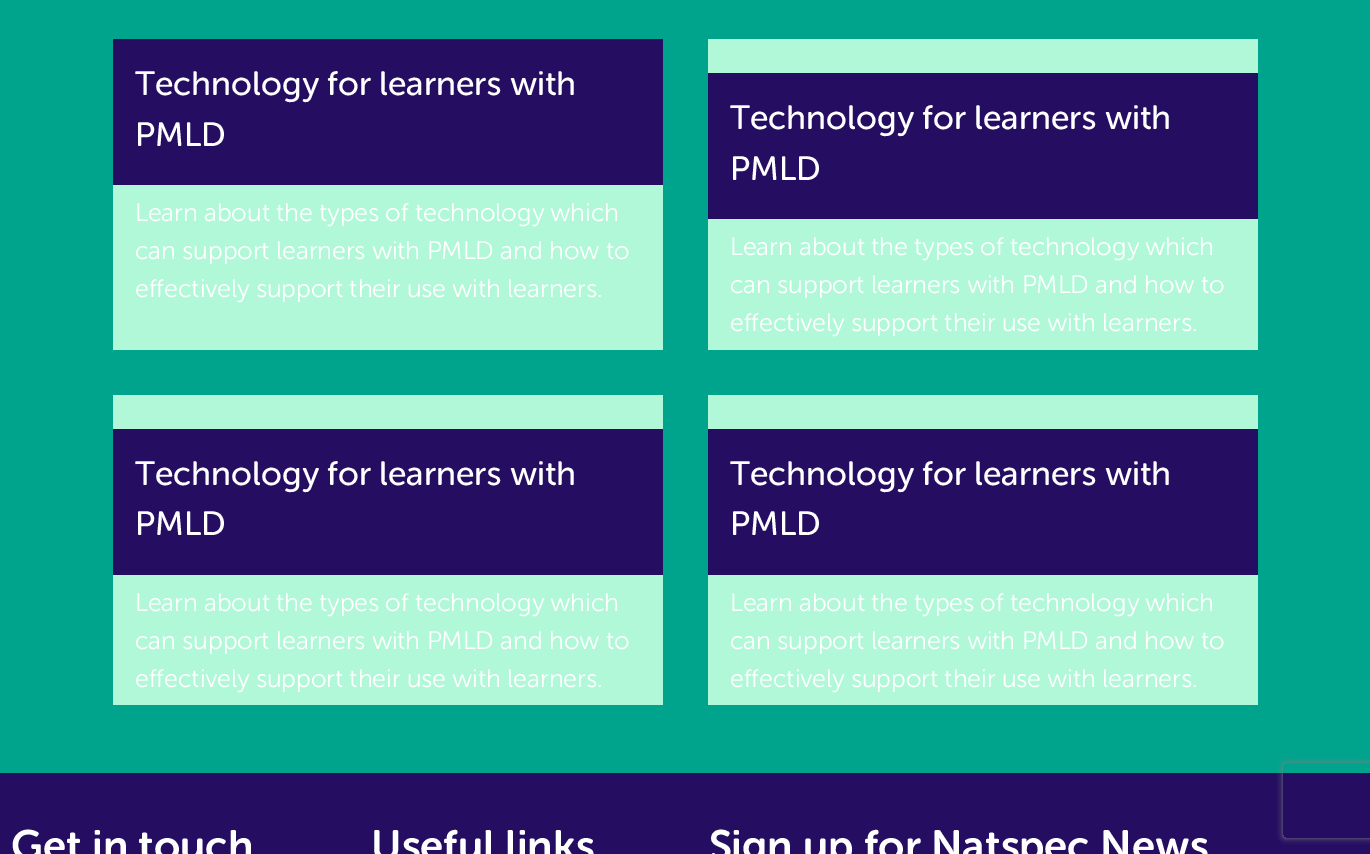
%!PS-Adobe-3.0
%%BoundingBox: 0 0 1370 854
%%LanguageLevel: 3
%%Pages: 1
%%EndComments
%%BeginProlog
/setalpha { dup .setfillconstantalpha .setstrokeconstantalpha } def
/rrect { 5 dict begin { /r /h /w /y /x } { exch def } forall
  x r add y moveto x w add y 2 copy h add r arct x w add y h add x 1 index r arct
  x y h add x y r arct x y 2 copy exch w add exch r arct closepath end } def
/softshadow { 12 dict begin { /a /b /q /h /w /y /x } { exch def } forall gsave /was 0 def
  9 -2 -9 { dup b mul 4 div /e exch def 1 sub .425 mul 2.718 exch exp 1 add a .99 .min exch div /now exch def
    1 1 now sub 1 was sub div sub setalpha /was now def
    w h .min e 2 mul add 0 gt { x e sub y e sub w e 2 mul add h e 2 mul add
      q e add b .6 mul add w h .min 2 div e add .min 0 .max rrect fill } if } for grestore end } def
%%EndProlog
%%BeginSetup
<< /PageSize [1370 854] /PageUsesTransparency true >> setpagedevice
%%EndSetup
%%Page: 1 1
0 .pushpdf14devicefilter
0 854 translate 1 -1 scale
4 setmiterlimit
0 0.639 0.549 setrgbcolor
0 0 1370 854 rectfill
0.694 0.973 0.851 setrgbcolor
113 185 550 165 rectfill
0.145 0.055 0.384 setrgbcolor
113 39 550 146 rectfill
0.694 0.973 0.851 setrgbcolor
708 39 550 311 rectfill
0.145 0.055 0.384 setrgbcolor
708 73 550 146 rectfill
0.694 0.973 0.851 setrgbcolor
113 395 550 310 rectfill
0.145 0.055 0.384 setrgbcolor
113 429 550 146 rectfill
0.694 0.973 0.851 setrgbcolor
708 395 550 310 rectfill
0.145 0.055 0.384 setrgbcolor
708 429 550 146 rectfill
0 773 1370 81 rectfill
gsave
newpath 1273 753 moveto 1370 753 lineto 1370 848 lineto 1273 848 lineto closepath 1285.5 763 moveto 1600.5 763 lineto 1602 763 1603 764 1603 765.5 curveto 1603 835.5 lineto 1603 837 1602 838 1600.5 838 curveto 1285.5 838 lineto 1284 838 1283 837 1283 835.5 curveto 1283 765.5 lineto 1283 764 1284 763 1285.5 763 curveto closepath eoclip newpath
0.502 setgray
1283 763 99 75 2.5 3 1 softshadow
grestore
/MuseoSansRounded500-Regular [33.75 0 0 -33.75 0 0] selectfont
1 setgray
135 95 moveto (Technology for learners with) show
135 146 moveto (PMLD) show
/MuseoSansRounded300-Regular [25.3 0 0 -25.3 0 0] selectfont
135 221 moveto (Learn about the types of technology which) show
135 259 moveto (can support learners with PMLD and how to) show
135 297 moveto (effectively support their use with learners.) show
/MuseoSansRounded500-Regular [33.75 0 0 -33.75 0 0] selectfont
730 129 moveto (Technology for learners with) show
730 180 moveto (PMLD) show
/MuseoSansRounded300-Regular [25.3 0 0 -25.3 0 0] selectfont
730 255 moveto (Learn about the types of technology which) show
730 293 moveto (can support learners with PMLD and how to) show
730 331 moveto (effectively support their use with learners.) show
/MuseoSansRounded500-Regular [33.75 0 0 -33.75 0 0] selectfont
135 485 moveto (Technology for learners with) show
135 535 moveto (PMLD) show
/MuseoSansRounded300-Regular [25.3 0 0 -25.3 0 0] selectfont
135 611 moveto (Learn about the types of technology which) show
135 649 moveto (can support learners with PMLD and how to) show
135 687 moveto (effectively support their use with learners.) show
/MuseoSansRounded500-Regular [33.75 0 0 -33.75 0 0] selectfont
730 485 moveto (Technology for learners with) show
730 535 moveto (PMLD) show
/MuseoSansRounded300-Regular [25.3 0 0 -25.3 0 0] selectfont
730 611 moveto (Learn about the types of technology which) show
730 649 moveto (can support learners with PMLD and how to) show
730 687 moveto (effectively support their use with learners.) show
/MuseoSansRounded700-Regular [42.25 0 0 -42.25 0 0] selectfont
11 860 moveto (Get in touch) show
371 860 moveto (Useful links) show
708 860 moveto (Sign up for Natspec News) show
.poppdf14devicefilter showpage
%%EOF
